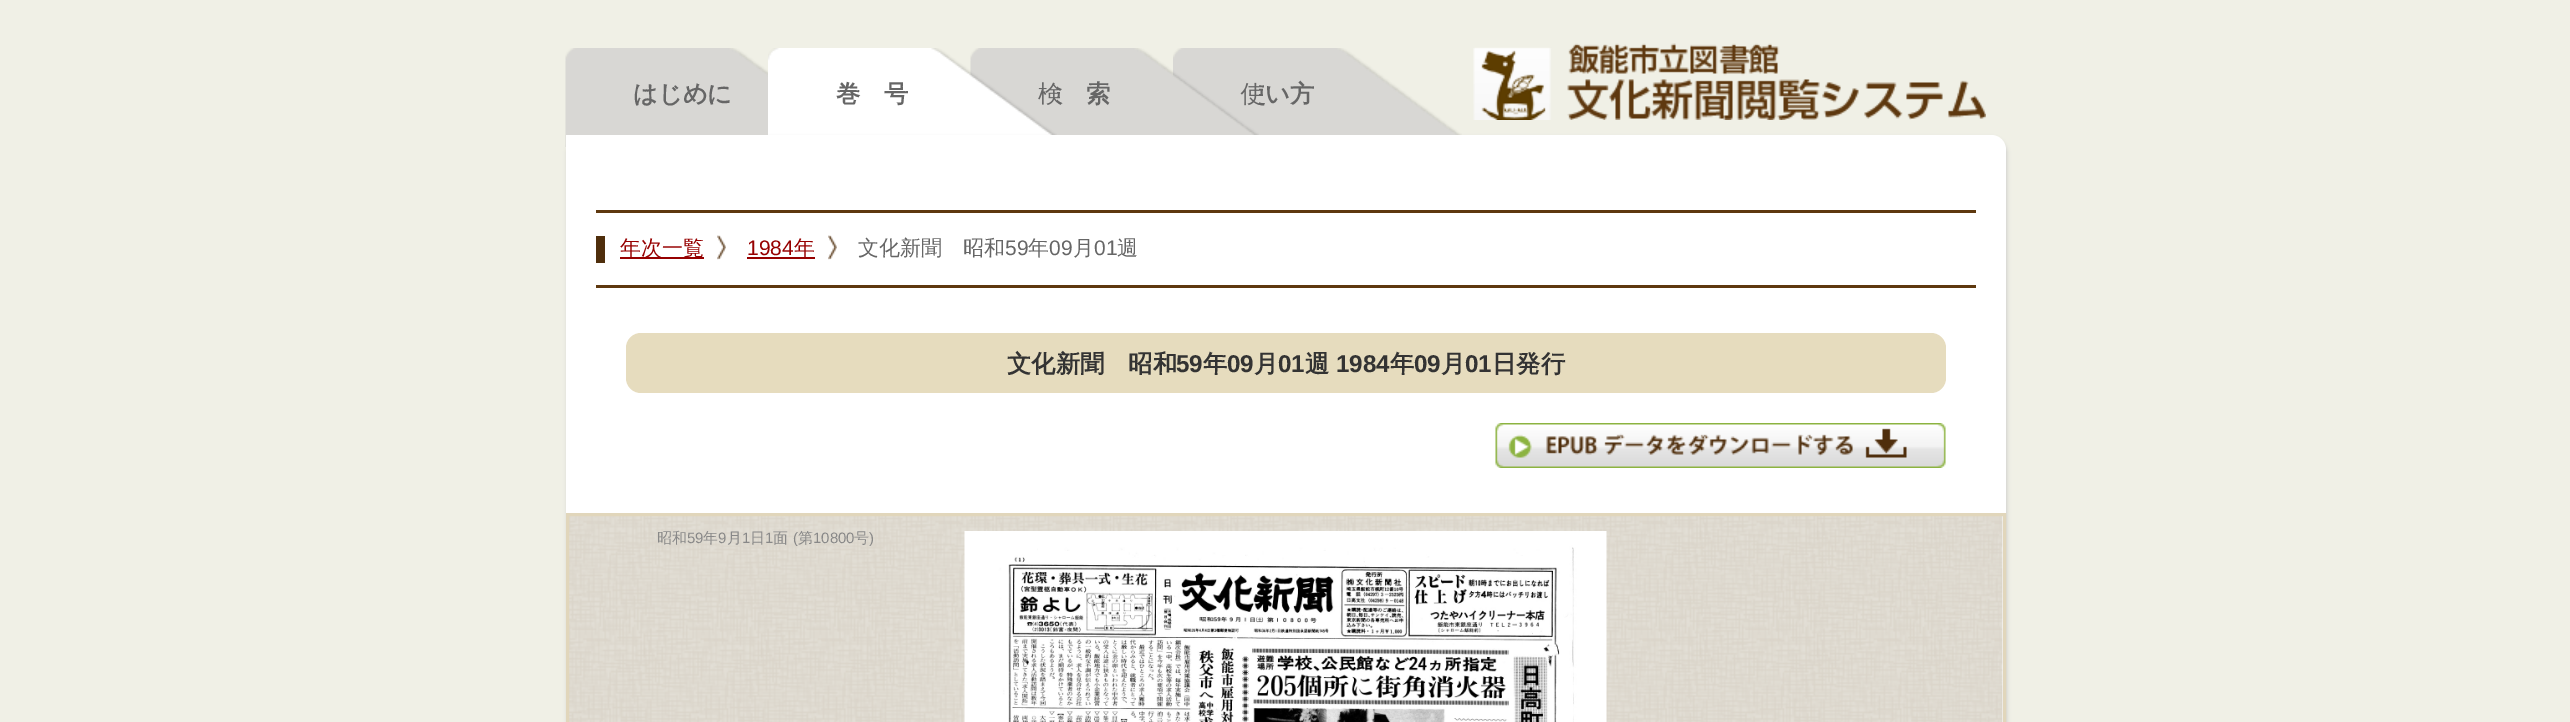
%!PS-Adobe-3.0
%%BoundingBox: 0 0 2570 722
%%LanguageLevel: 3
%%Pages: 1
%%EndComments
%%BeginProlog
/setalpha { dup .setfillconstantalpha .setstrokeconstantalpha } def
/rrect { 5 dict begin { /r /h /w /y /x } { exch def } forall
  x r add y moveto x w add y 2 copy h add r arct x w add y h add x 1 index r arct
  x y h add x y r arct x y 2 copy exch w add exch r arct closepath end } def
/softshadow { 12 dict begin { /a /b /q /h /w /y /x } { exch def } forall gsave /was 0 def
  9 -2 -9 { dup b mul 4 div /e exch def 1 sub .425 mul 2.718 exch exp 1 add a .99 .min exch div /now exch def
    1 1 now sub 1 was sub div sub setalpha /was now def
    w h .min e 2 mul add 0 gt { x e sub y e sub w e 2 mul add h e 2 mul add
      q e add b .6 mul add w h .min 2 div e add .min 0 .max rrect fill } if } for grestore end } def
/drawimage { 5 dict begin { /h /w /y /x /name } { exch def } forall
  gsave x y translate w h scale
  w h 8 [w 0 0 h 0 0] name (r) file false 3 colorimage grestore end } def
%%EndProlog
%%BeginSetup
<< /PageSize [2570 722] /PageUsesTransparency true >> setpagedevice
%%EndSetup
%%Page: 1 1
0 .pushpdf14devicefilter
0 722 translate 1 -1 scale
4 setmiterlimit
0.941 0.941 0.902 setrgbcolor
0 0 2570 722 rectfill
(images/1.raw) 565 48 203 99 drawimage
(images/4.raw) 1173 48 289 87 drawimage
(images/5.raw) 1473 43 513 77 drawimage
/WenQuanYiZenHei-Bold [24.25 0 0 -24.25 0 0] selectfont
0.4 setgray
633 102 moveto (はじめに) show
1241 102 moveto (使い方) show
(images/3.raw) 970 48 289 87 drawimage
1038 102 moveto 24 0 (検索) ashow
(images/2.raw) 768 48 289 87 drawimage
836 102 moveto 24 0 (巻号) ashow
0.8 setgray
567 138 1440 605 15 2 1 softshadow
1 setgray
newpath 566 135 moveto 1991 135 lineto 1999.5 135 2006 141.5 2006 150 curveto 2006 722 lineto 2006 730.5 1999.5 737 1991 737 curveto 581 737 lineto 572.5 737 566 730.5 566 722 curveto closepath fill
0.369 0.22 0.059 setrgbcolor
596 210 1380 3 rectfill
596 285 1380 3 rectfill
0.31 0.18 0.047 setrgbcolor
596 236 9 27 rectfill
0.588 0 0 setrgbcolor
620 257 84 2 rectfill
/WenQuanYiZenHei-Medium [21 0 0 -21 0 0] selectfont
620 255 moveto (年次一覧) show
(images/6.raw) 717 235 9 25 drawimage
/LiberationSans-Regular [21 0 0 -21 0 0] selectfont
747 255 moveto (1984) show
747 257 68 2 rectfill
/WenQuanYiZenHei-Medium [21 0 0 -21 0 0] selectfont
794 255 moveto (年) show
(images/7.raw) 828 235 9 25 drawimage
0.4 setgray
858 255 moveto (文化新聞　昭和) show
/LiberationSans-Regular [21 0 0 -21 0 0] selectfont
1005 255 moveto (59) show
/WenQuanYiZenHei-Medium [21 0 0 -21 0 0] selectfont
1028 255 moveto (年) show
/LiberationSans-Regular [21 0 0 -21 0 0] selectfont
1049 255 moveto (09) show
/WenQuanYiZenHei-Medium [21 0 0 -21 0 0] selectfont
1073 255 moveto (月) show
/LiberationSans-Regular [21 0 0 -21 0 0] selectfont
1094 255 moveto (01) show
/WenQuanYiZenHei-Medium [21 0 0 -21 0 0] selectfont
1117 255 moveto (週) show
0.902 0.863 0.745 setrgbcolor
626 333 1320 60 15 rrect fill
/WenQuanYiZenHei-Bold [24.25 0 0 -24.25 0 0] selectfont
0.2 setgray
1007 372 moveto (文化新聞　昭和) show
/LiberationSans-Bold [24.25 0 0 -24.25 0 0] selectfont
1176 372 moveto (59) show
/WenQuanYiZenHei-Bold [24.25 0 0 -24.25 0 0] selectfont
1203 372 moveto (年) show
/LiberationSans-Bold [24.25 0 0 -24.25 0 0] selectfont
1227 372 moveto (09) show
/WenQuanYiZenHei-Bold [24.25 0 0 -24.25 0 0] selectfont
1254 372 moveto (月) show
/LiberationSans-Bold [24.25 0 0 -24.25 0 0] selectfont
1278 372 moveto (01) show
/WenQuanYiZenHei-Bold [24.25 0 0 -24.25 0 0] selectfont
1305 372 moveto (週) show
/LiberationSans-Bold [24.25 0 0 -24.25 0 0] selectfont
1336 372 moveto (1984) show
/WenQuanYiZenHei-Bold [24.25 0 0 -24.25 0 0] selectfont
1390 372 moveto (年) show
/LiberationSans-Bold [24.25 0 0 -24.25 0 0] selectfont
1414 372 moveto (09) show
/WenQuanYiZenHei-Bold [24.25 0 0 -24.25 0 0] selectfont
1441 372 moveto (月) show
/LiberationSans-Bold [24.25 0 0 -24.25 0 0] selectfont
1465 372 moveto (01) show
/WenQuanYiZenHei-Bold [24.25 0 0 -24.25 0 0] selectfont
1492 372 moveto (日発行) show
(images/8.raw) 1495 423 451 45 drawimage
(images/9.raw) 569 516 1434 206 drawimage
0.882 0.839 0.733 setrgbcolor
3 setlinewidth
567.5 514.5 1437 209 rectstroke
/WenQuanYiZenHei-Medium [15 0 0 -15 0 0] selectfont
0.533 setgray
657 543 moveto (昭和) show
/LiberationSans-Regular [15 0 0 -15 0 0] selectfont
687 543 moveto (59) show
/WenQuanYiZenHei-Medium [15 0 0 -15 0 0] selectfont
703 543 moveto (年) show
/LiberationSans-Regular [15 0 0 -15 0 0] selectfont
718 543 moveto (9) show
/WenQuanYiZenHei-Medium [15 0 0 -15 0 0] selectfont
727 543 moveto (月) show
/LiberationSans-Regular [15 0 0 -15 0 0] selectfont
742 543 moveto (1) show
/WenQuanYiZenHei-Medium [15 0 0 -15 0 0] selectfont
750 543 moveto (日) show
/LiberationSans-Regular [15 0 0 -15 0 0] selectfont
765 543 moveto (1) show
/WenQuanYiZenHei-Medium [15 0 0 -15 0 0] selectfont
773 543 moveto (面) show
/LiberationSans-Regular [15 0 0 -15 0 0] selectfont
793 543 moveto (\() show
/WenQuanYiZenHei-Medium [15 0 0 -15 0 0] selectfont
798 543 moveto (第) show
/LiberationSans-Regular [15 0 0 -15 0 0] selectfont
813 543 moveto (10800) show
/WenQuanYiZenHei-Medium [15 0 0 -15 0 0] selectfont
854 543 moveto (号) show
/LiberationSans-Regular [15 0 0 -15 0 0] selectfont
869 543 moveto (\)) show
(images/10.raw) 964 531 643 191 drawimage
.poppdf14devicefilter showpage
%%EOF
